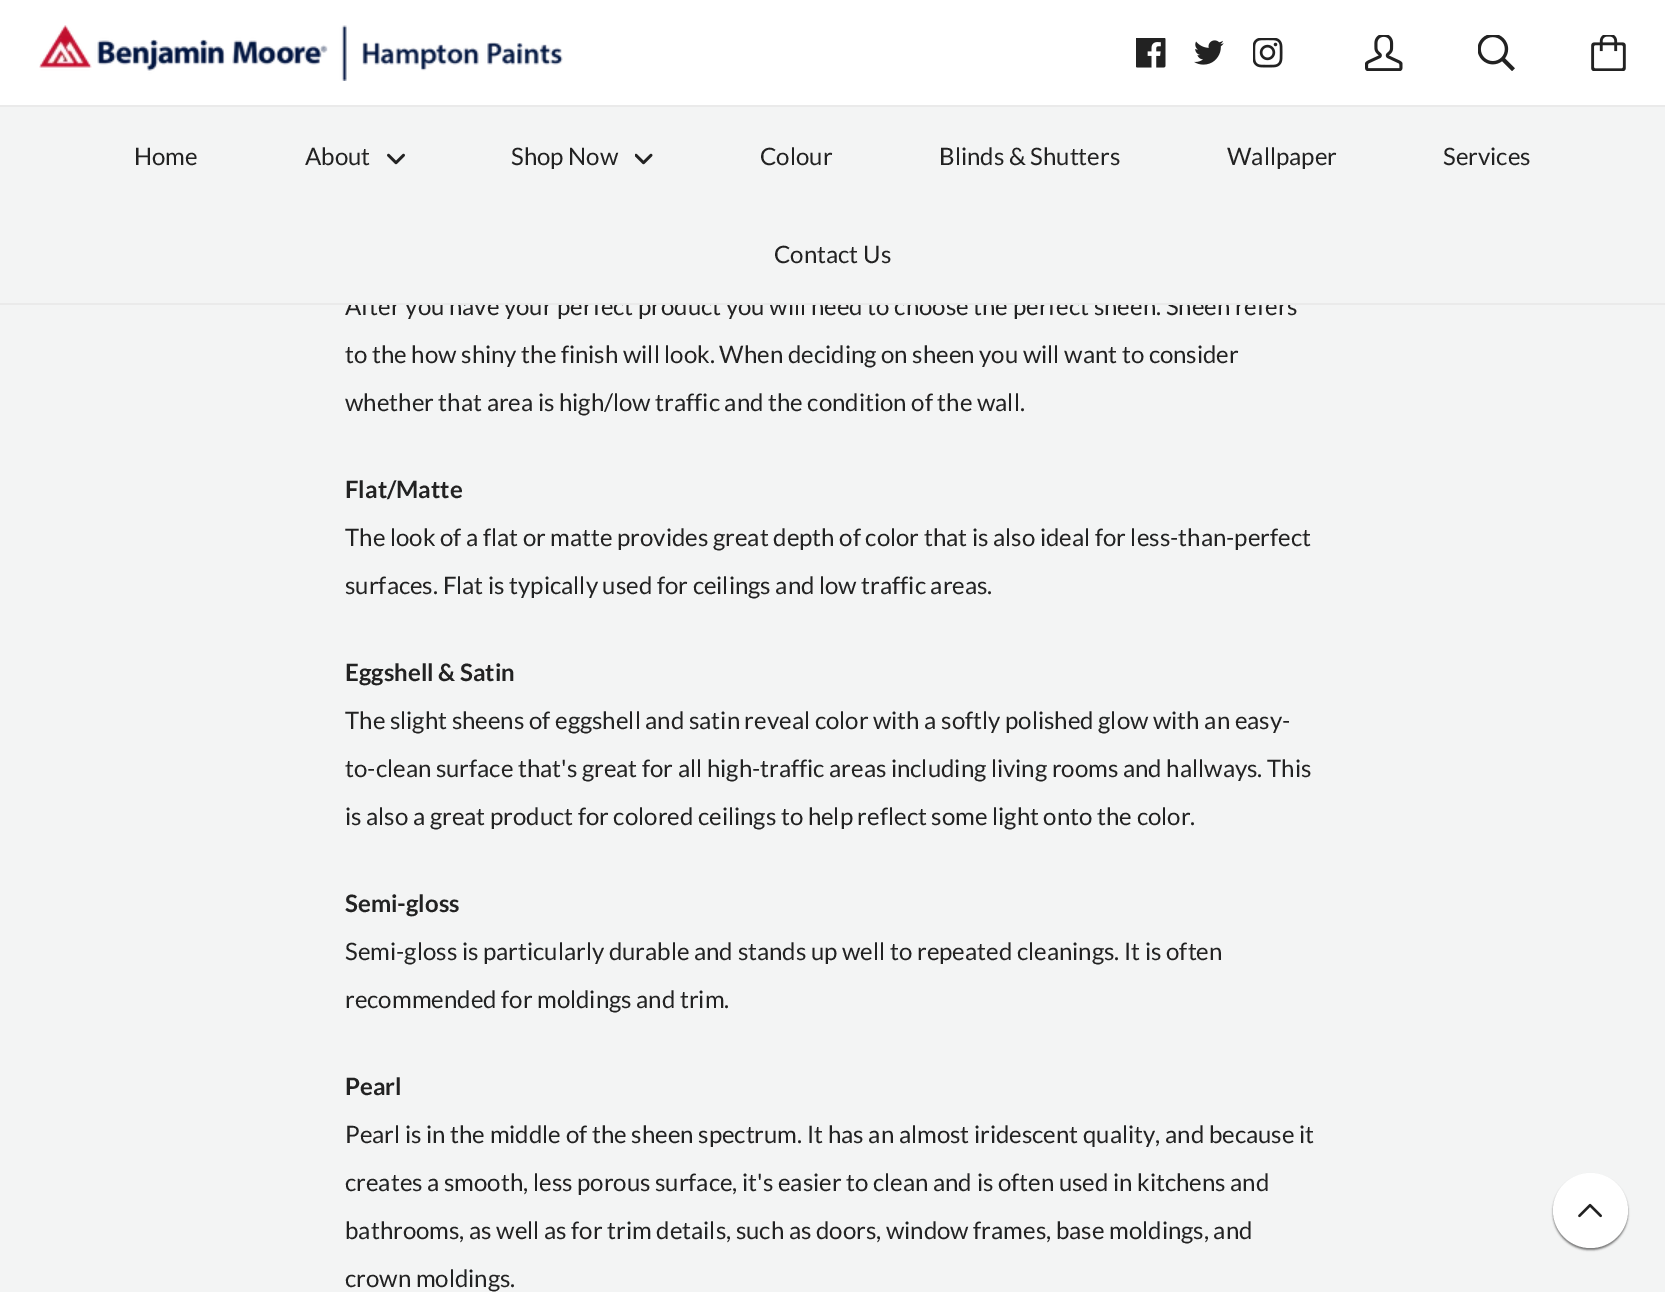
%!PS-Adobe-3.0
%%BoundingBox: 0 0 1665 1292
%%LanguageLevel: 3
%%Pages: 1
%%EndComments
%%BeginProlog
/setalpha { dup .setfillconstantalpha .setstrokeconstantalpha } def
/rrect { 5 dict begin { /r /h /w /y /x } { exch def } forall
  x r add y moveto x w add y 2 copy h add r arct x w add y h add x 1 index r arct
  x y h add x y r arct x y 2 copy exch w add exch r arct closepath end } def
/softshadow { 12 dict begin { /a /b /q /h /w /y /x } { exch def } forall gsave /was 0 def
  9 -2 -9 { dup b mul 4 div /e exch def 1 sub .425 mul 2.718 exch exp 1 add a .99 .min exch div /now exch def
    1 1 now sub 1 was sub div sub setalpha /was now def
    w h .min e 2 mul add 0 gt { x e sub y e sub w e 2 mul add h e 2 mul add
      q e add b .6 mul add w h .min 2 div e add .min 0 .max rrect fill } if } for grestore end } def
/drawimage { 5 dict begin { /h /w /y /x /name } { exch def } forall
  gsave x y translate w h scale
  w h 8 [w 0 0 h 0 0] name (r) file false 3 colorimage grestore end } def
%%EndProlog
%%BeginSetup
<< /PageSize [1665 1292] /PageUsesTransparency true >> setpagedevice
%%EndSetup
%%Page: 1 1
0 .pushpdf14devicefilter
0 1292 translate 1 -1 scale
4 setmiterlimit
0.953 0.957 0.957 setrgbcolor
0 0 1665 1292 rectfill
1 setgray
0 0 1665 105 rectfill
(images/1.raw) 39 25 524 56 drawimage
(images/2.raw) 1136 38 30 30 drawimage
(images/3.raw) 1194 40 30 25 drawimage
(images/4.raw) 1253 38 30 30 drawimage
(images/5.raw) 1365 35 38 36 drawimage
(images/6.raw) 1478 35 37 36 drawimage
(images/7.raw) 1591 35 35 36 drawimage
0.918 setgray
0 105 1665 2 rectfill
(images/8.raw) 387 153 18 12 drawimage
(images/9.raw) 635 153 18 12 drawimage
0.133 setgray
1553 1175 75 75 37.5 1 0.6 softshadow
1 setgray
newpath 1590.5 1210.5 37.5 0 360 arc closepath fill
(images/10.raw) 1578 1203 24 15 drawimage
/Lato-Regular [24 0 0 -24 0 0] selectfont
0.133 setgray
134 165 moveto (Home) show
305 165 moveto (About) show
511 165 moveto (Shop Now) show
760 165 moveto (Colour) show
939 165 moveto (Blinds & Shutters) show
1227 165 moveto (Wallpaper) show
1443 165 moveto (Services) show
774 263 moveto (Contact Us) show
345 315 moveto (After you have your perfect product you will need to choose the perfect sheen. Sheen refers) show
0.953 0.957 0.957 setrgbcolor
350 297 945 6 rectfill
0.918 setgray
0 303 1665 2 rectfill
0.133 setgray
345 363 moveto (to the how shiny the finish will look. When deciding on sheen you will want to consider) show
345 411 moveto (whether that area is high/low traffic and the condition of the wall.) show
/Lato-Bold [24 0 0 -24 0 0] selectfont
345 498 moveto (Flat/Matte) show
/Lato-Regular [24 0 0 -24 0 0] selectfont
345 546 moveto (The look of a flat or matte provides great depth of color that is also ideal for less-than-perfect) show
345 594 moveto (surfaces. Flat is typically used for ceilings and low traffic areas.) show
/Lato-Bold [24 0 0 -24 0 0] selectfont
345 681 moveto (Eggshell & Satin) show
/Lato-Regular [24 0 0 -24 0 0] selectfont
345 729 moveto (The slight sheens of eggshell and satin reveal color with a softly polished glow with an easy-) show
345 777 moveto (to-clean surface that's great for all high-traffic areas including living rooms and hallways. This) show
345 825 moveto (is also a great product for colored ceilings to help reflect some light onto the color.) show
/Lato-Bold [24 0 0 -24 0 0] selectfont
345 912 moveto (Semi-gloss) show
/Lato-Regular [24 0 0 -24 0 0] selectfont
345 960 moveto (Semi-gloss is particularly durable and stands up well to repeated cleanings. It is often) show
345 1008 moveto (recommended for moldings and trim.) show
/Lato-Bold [24 0 0 -24 0 0] selectfont
345 1095 moveto (Pearl) show
/Lato-Regular [24 0 0 -24 0 0] selectfont
345 1143 moveto (Pearl is in the middle of the sheen spectrum. It has an almost iridescent quality, and because it) show
345 1191 moveto (creates a smooth, less porous surface, it's easier to clean and is often used in kitchens and) show
345 1239 moveto (bathrooms, as well as for trim details, such as doors, window frames, base moldings, and) show
345 1287 moveto (crown moldings.) show
.poppdf14devicefilter showpage
%%EOF
